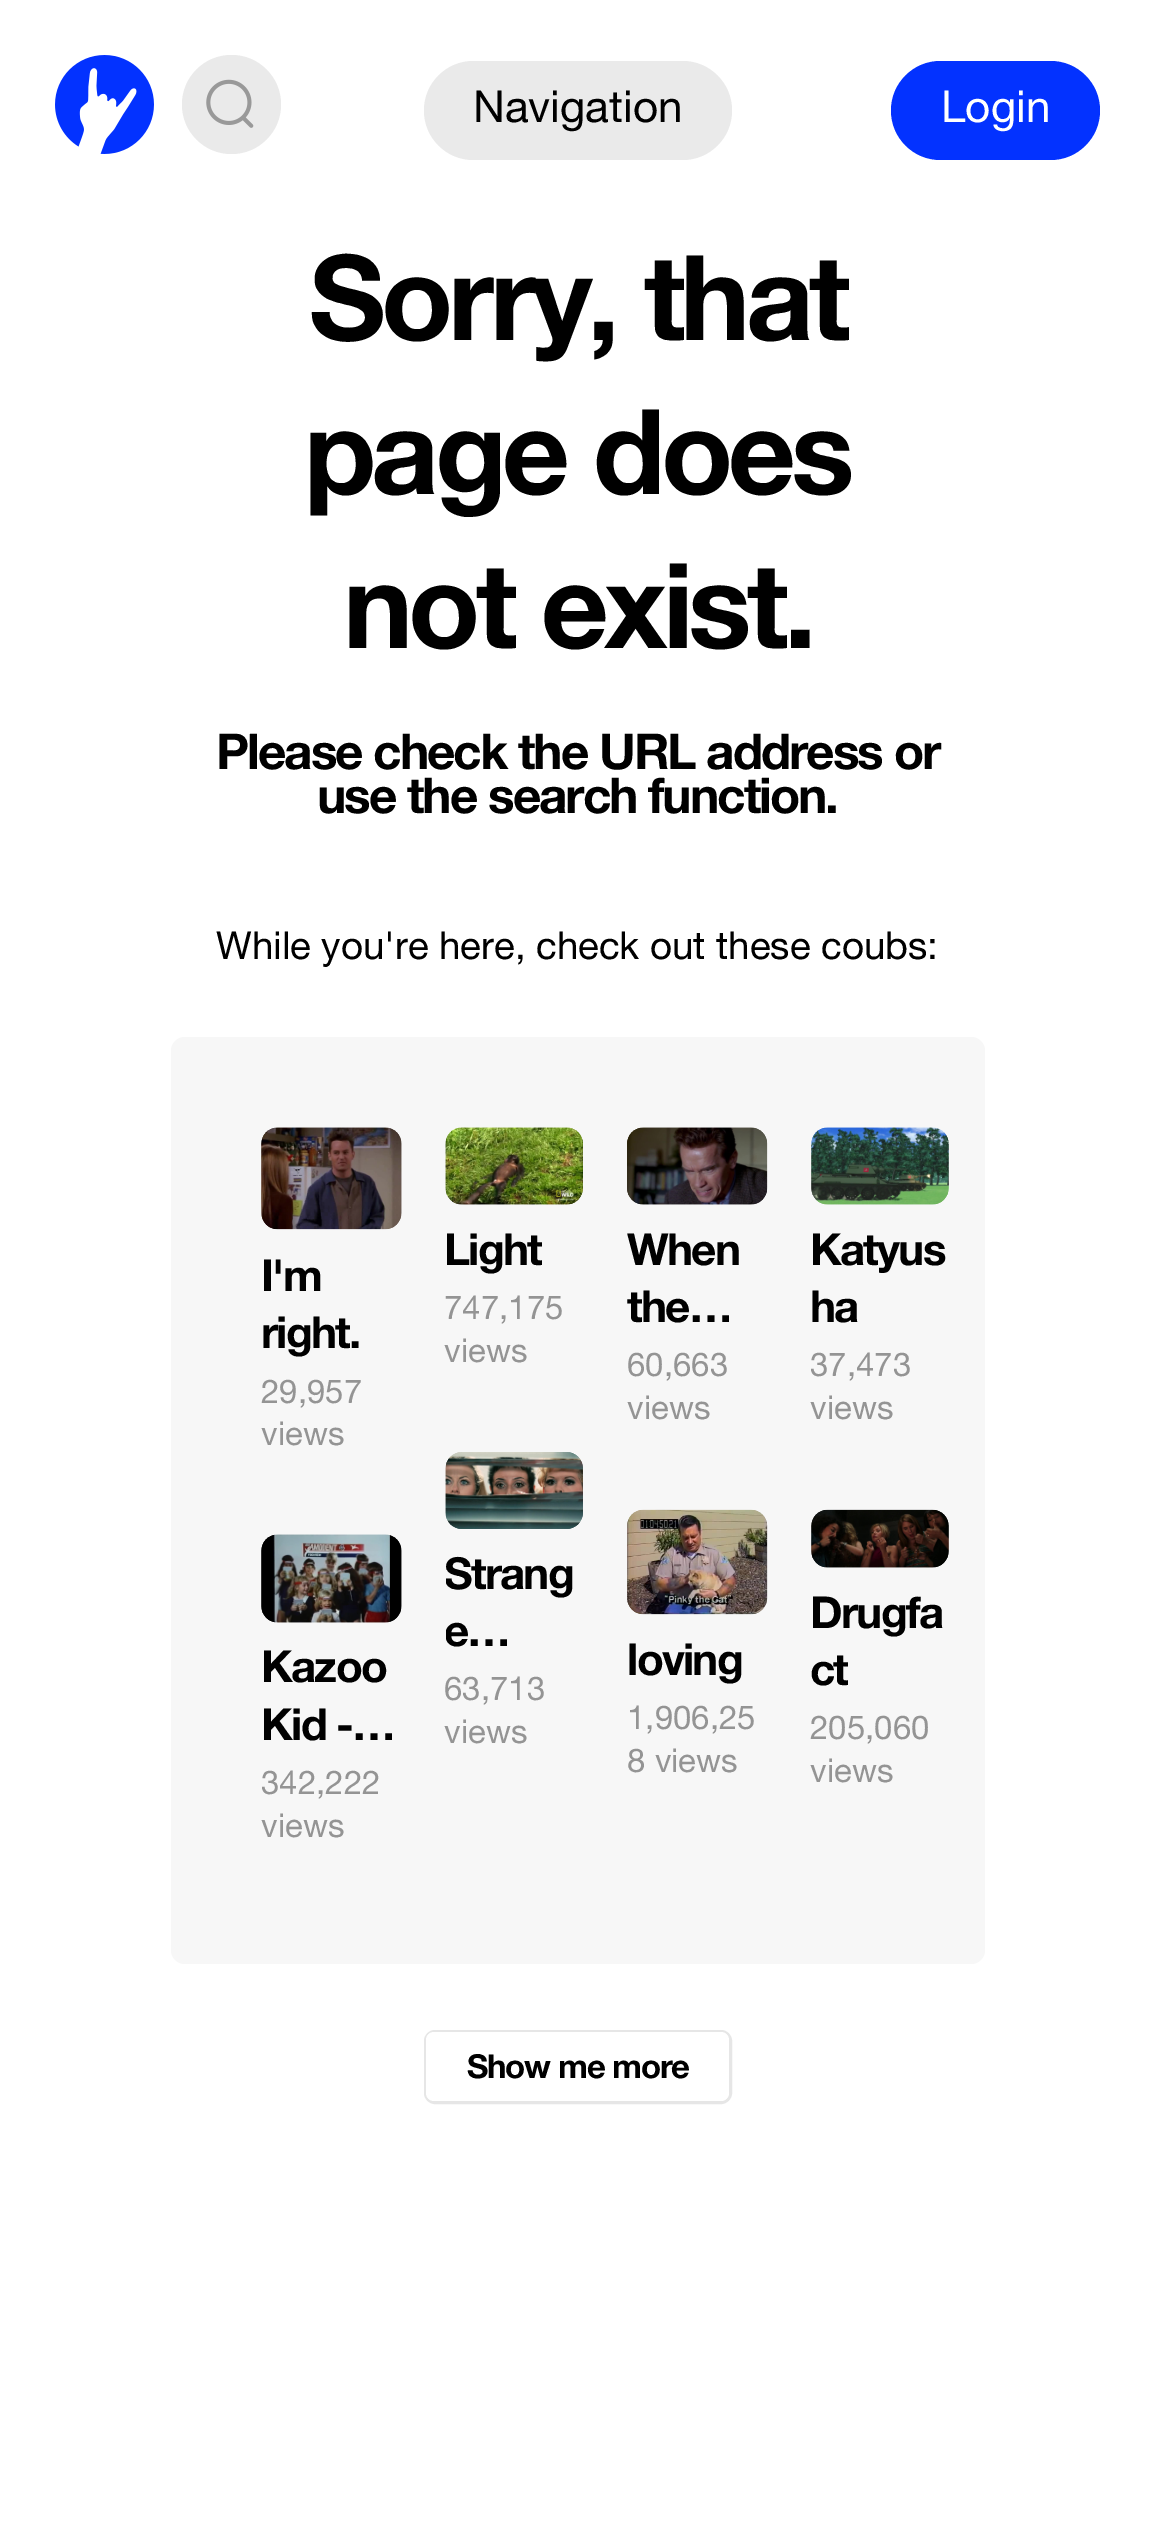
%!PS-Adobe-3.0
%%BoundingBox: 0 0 1154 2548
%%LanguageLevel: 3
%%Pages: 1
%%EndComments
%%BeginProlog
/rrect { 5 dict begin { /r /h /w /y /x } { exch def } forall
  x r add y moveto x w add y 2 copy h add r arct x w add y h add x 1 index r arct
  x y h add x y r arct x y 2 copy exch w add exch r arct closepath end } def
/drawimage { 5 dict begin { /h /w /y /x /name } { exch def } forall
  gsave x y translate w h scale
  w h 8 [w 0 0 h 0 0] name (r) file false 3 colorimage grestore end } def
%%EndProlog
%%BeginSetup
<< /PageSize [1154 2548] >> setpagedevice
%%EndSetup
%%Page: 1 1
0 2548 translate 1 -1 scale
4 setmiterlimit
1 setgray
0 0 1154 2548 rectfill
(images/1.raw) 55 55 99 99 drawimage
0.918 setgray
newpath 231.5 104.5 49.5 0 360 arc closepath fill
(images/2.raw) 206 79 48 49 drawimage
424 61 308 99 49.5 rrect fill
0.012 0.196 1 setrgbcolor
891 61 209 99 49.5 rrect fill
0.969 setgray
171 1037 814 927 14 rrect fill
(images/3.raw) 261 1127 141 103 drawimage
(images/4.raw) 261 1127 141 103 drawimage
(images/5.raw) 445 1127 138 78 drawimage
(images/6.raw) 445 1127 138 78 drawimage
(images/7.raw) 627 1127 141 78 drawimage
(images/8.raw) 627 1127 141 78 drawimage
(images/9.raw) 811 1127 138 78 drawimage
(images/10.raw) 811 1127 138 78 drawimage
(images/11.raw) 261 1534 141 89 drawimage
(images/12.raw) 261 1534 141 89 drawimage
(images/13.raw) 445 1452 138 77 drawimage
(images/14.raw) 445 1452 138 77 drawimage
(images/15.raw) 627 1509 141 106 drawimage
(images/16.raw) 627 1509 141 106 drawimage
(images/17.raw) 811 1509 138 59 drawimage
(images/18.raw) 811 1509 138 59 drawimage
0.902 setgray
3 setlinewidth
425.5 2031.5 305 71 9.5 rrect stroke
1 setgray
426 2032 303 69 8 rrect fill
/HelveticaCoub-Regular [44 0 0 -44 0 0] selectfont
0 setgray
473 122 moveto (Navigation) show
1 setgray
941 122 moveto (Login) show
/HelveticaCoub-Bold [118.25 0 0 -118.25 0 0] selectfont
0 setgray
309 340 moveto -4.75 0 (Sorry, that) ashow
304 494 moveto -4.75 0 (page does) ashow
343 648 moveto -4.75 0 (not exist.) ashow
/HelveticaCoub-Bold [49.5 0 0 -49.5 0 0] selectfont
216 769 moveto -2 0 (Please check the URL address or) ashow
317 813 moveto -2 0 (use the search function.) ashow
/HelveticaCoub-Regular [38.5 0 0 -38.5 0 0] selectfont
216 959 moveto (While you're here, check out these coubs:) show
/HelveticaCoub-Bold [44 0 0 -44 0 0] selectfont
261 1291 moveto -1.75 0 (I'm) ashow
261 1348 moveto -1.75 0 (right.) ashow
/HelveticaCoub-Regular [33 0 0 -33 0 0] selectfont
0.58 setgray
261 1403 moveto (29,957) show
261 1445 moveto (views) show
/HelveticaCoub-Bold [44 0 0 -44 0 0] selectfont
0 setgray
444 1265 moveto -1.75 0 (Light) ashow
/HelveticaCoub-Regular [33 0 0 -33 0 0] selectfont
0.58 setgray
444 1319 moveto (747,175) show
444 1362 moveto (views) show
/HelveticaCoub-Bold [44 0 0 -44 0 0] selectfont
0 setgray
627 1265 moveto -1.75 0 (When) ashow
627 1322 moveto -1.75 0 (the…) ashow
/HelveticaCoub-Regular [33 0 0 -33 0 0] selectfont
0.58 setgray
627 1376 moveto (60,663) show
627 1419 moveto (views) show
/HelveticaCoub-Bold [44 0 0 -44 0 0] selectfont
0 setgray
810 1265 moveto -1.75 0 (Katyus) ashow
810 1322 moveto -1.75 0 (ha) ashow
/HelveticaCoub-Regular [33 0 0 -33 0 0] selectfont
0.58 setgray
810 1376 moveto (37,473) show
810 1419 moveto (views) show
/HelveticaCoub-Bold [44 0 0 -44 0 0] selectfont
0 setgray
261 1682 moveto -1.75 0 (Kazoo) ashow
261 1740 moveto -1.75 0 (Kid -…) ashow
/HelveticaCoub-Regular [33 0 0 -33 0 0] selectfont
0.58 setgray
261 1794 moveto (342,222) show
261 1837 moveto (views) show
gsave
446 1548 137 113 rectclip
/HelveticaCoub-Bold [44 0 0 -44 0 0] selectfont
0 setgray
444 1589 moveto -1.75 0 (Strang) ashow
444 1646 moveto -1.75 0 (e…) ashow
grestore
444 1700 moveto (63,713) show
444 1743 moveto (views) show
/HelveticaCoub-Bold [44 0 0 -44 0 0] selectfont
0 setgray
627 1675 moveto -1.75 0 (loving) ashow
/HelveticaCoub-Regular [33 0 0 -33 0 0] selectfont
0.58 setgray
627 1729 moveto (1,906,25) show
627 1772 moveto (8 views) show
/HelveticaCoub-Bold [44 0 0 -44 0 0] selectfont
0 setgray
810 1628 moveto -1.75 0 (Drugfa) ashow
810 1685 moveto -1.75 0 (ct) ashow
/HelveticaCoub-Regular [33 0 0 -33 0 0] selectfont
0.58 setgray
810 1739 moveto (205,060) show
810 1782 moveto (views) show
/HelveticaCoub-Bold [33 0 0 -33 0 0] selectfont
0 setgray
467 2078 moveto -1.25 0 (Show me more) ashow
showpage
%%EOF
